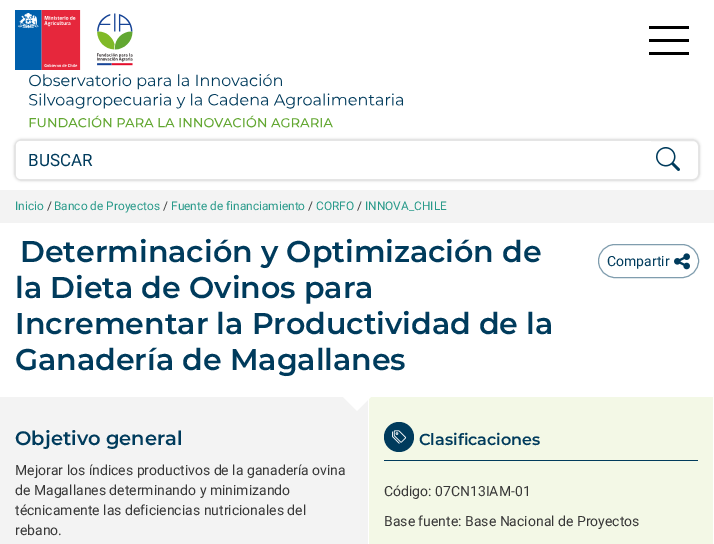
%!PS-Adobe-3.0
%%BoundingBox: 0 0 714 544
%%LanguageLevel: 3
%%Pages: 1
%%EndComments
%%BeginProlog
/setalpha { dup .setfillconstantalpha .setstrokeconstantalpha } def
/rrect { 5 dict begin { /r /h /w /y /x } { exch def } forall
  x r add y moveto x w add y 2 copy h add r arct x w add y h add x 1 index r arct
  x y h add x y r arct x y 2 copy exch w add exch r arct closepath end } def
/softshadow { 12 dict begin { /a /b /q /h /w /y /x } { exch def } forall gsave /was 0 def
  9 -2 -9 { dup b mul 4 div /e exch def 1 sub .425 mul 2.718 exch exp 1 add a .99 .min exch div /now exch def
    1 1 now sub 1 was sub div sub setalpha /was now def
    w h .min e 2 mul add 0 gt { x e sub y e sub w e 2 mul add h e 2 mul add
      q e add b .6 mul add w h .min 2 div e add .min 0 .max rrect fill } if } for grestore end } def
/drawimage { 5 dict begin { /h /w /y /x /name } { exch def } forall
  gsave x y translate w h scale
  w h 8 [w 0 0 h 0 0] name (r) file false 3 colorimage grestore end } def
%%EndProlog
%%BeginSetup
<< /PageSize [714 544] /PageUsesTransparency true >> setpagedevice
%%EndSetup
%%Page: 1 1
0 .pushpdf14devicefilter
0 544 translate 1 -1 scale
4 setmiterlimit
1 setgray
0 0 714 544 rectfill
(images/1.raw) 15 10 118 60 drawimage
(images/2.raw) 29 74 375 54 drawimage
0 setgray
649 26 40 3 rectfill
649 39 40 3 rectfill
649 52 40 3 rectfill
gsave
newpath 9 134 moveto 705 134 lineto 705 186 lineto 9 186 lineto closepath 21 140 moveto 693 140 lineto 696.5 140 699 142.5 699 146 curveto 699 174 lineto 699 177.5 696.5 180 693 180 curveto 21 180 lineto 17.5 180 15 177.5 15 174 curveto 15 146 lineto 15 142.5 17.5 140 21 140 curveto closepath eoclip newpath
0.114 0.114 0.106 setrgbcolor
15 140 684 40 6 1.5 0.3 softshadow
grestore
0.898 setgray
15.5 140.5 683 39 5.5 rrect stroke
1 setgray
newpath 21 141 moveto 651 141 lineto 651 179 lineto 21 179 lineto 18 179 16 177 16 174 curveto 16 146 lineto 16 143 18 141 21 141 curveto closepath fill
(images/3.raw) 656 147 24 24 drawimage
0.953 setgray
0 190 714 33 rectfill
0 397 368 147 rectfill
0.953 0.973 0.902 setrgbcolor
369 397 344 147 rectfill
1 setgray
newpath 357 382.5 moveto 371 397 lineto 357 411 lineto 343 397 lineto closepath fill
0.502 0.616 0.682 setrgbcolor
598.5 244.5 100 33 16.5 rrect stroke
(images/4.raw) 674 253 16 17 drawimage
0 0.231 0.361 setrgbcolor
384 460 314 1 rectfill
newpath 399 437 15 0 360 arc closepath fill
(images/5.raw) 392 430 15 14 drawimage
/Roboto-Regular [17 0 0 -17 0 0] selectfont
28 166 moveto (BUSCAR) show
/Roboto-Regular [11.9 0 0 -11.9 0 0] selectfont
0.153 0.6 0.537 setrgbcolor
15 210 moveto (Inicio) show
0.216 setgray
47 210 moveto (/) show
0.153 0.6 0.537 setrgbcolor
54 210 moveto (Banco de Proyectos) show
0.216 setgray
163 210 moveto (/) show
0.153 0.6 0.537 setrgbcolor
171 210 moveto (Fuente de financiamiento) show
0.216 setgray
308 210 moveto (/) show
0.153 0.6 0.537 setrgbcolor
316 210 moveto (CORFO) show
0.216 setgray
357 210 moveto (/) show
0.153 0.6 0.537 setrgbcolor
365 210 moveto (INNOVA_CHILE) show
/Montserrat-SemiBold [30 0 0 -30 0 0] selectfont
0 0.231 0.361 setrgbcolor
20 262 moveto (Determinación y Optimización de) show
15 298 moveto (la Dieta de Ovinos para) show
15 334 moveto (Incrementar la Productividad de la) show
15 370 moveto (Ganadería de Magallanes) show
/Roboto-Regular [14 0 0 -14 0 0] selectfont
607 266 moveto (Compartir) show
/Montserrat-SemiBold [19.5 0 0 -19.5 0 0] selectfont
15 445 moveto (Objetivo general) show
/Roboto-Regular [14 0 0 -14 0 0] selectfont
0.216 setgray
15 475 moveto (Mejorar los índices productivos de la ganadería ovina) show
15 495 moveto (de Magallanes determinando y minimizando) show
15 515 moveto (técnicamente las deficiencias nutricionales del) show
15 535 moveto (rebano.) show
/Montserrat-SemiBold [16 0 0 -16 0 0] selectfont
0 0.231 0.361 setrgbcolor
419 445 moveto (Clasificaciones) show
/Roboto-Regular [14 0 0 -14 0 0] selectfont
0.216 setgray
384 496 moveto (Código: 07CN13IAM-01) show
384 526 moveto (Base fuente: Base Nacional de Proyectos) show
.poppdf14devicefilter showpage
%%EOF
